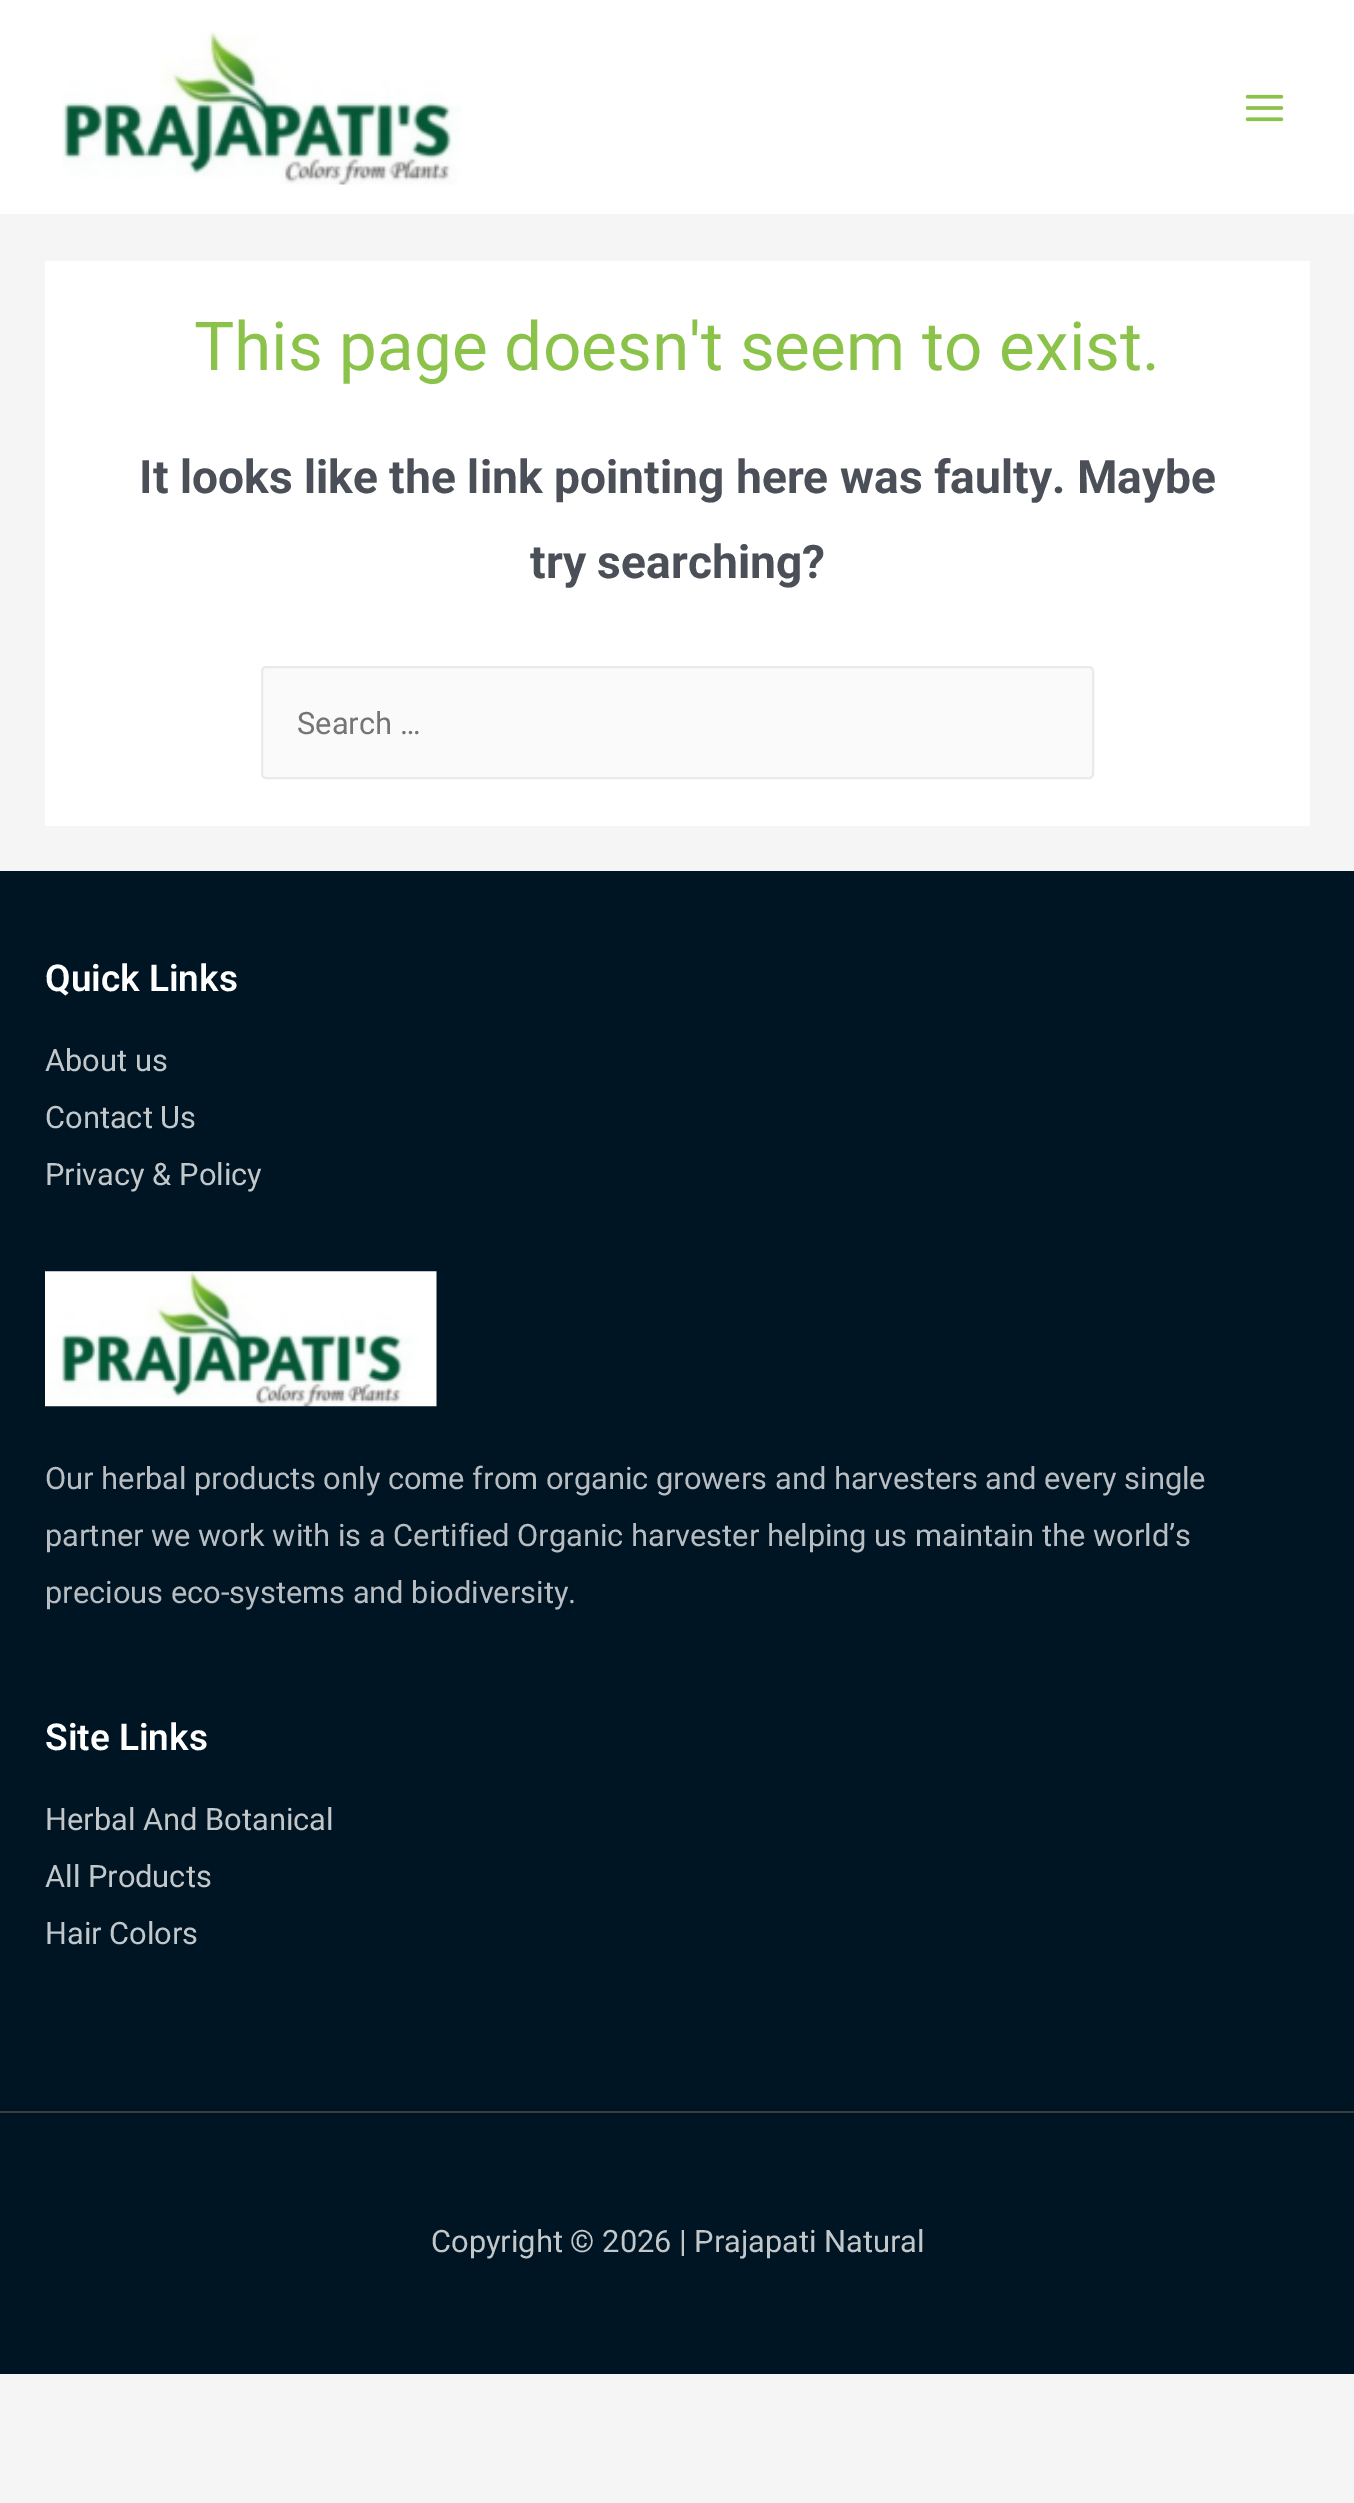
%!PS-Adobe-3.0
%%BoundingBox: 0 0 1354 2503
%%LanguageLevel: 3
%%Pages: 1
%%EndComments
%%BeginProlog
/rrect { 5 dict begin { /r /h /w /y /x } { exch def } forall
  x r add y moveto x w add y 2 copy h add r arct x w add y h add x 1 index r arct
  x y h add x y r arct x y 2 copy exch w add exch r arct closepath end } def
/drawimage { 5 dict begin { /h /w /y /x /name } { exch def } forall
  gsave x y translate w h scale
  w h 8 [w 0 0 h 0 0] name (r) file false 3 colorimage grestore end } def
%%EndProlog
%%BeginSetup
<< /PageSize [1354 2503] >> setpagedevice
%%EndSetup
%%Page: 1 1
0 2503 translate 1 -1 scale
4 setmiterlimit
0.961 setgray
0 0 1354 2503 rectfill
1 setgray
0 0 1354 214 rectfill
(images/1.raw) 62 31 399 154 drawimage
(images/2.raw) 1245 94 39 28 drawimage
45 261 1265 565 rectfill
0.98 setgray
262 667 831 111 4 rrect gsave fill grestore
0.918 setgray
2 setlinewidth
stroke
0 0.082 0.141 setrgbcolor
0 871 1354 1240 rectfill
(images/3.raw) 45 1271 392 136 drawimage
0 2113 1354 261 rectfill
0.239 setgray
0 2111 1354 2 rectfill
/Roboto-Regular [67.5 0 0 -67.5 0 0] selectfont
0.545 0.765 0.29 setrgbcolor
194 370 moveto (This page doesn't seem to exist.) show
/Roboto-Bold [46.2 0 0 -46.2 0 0] selectfont
0.294 0.31 0.345 setrgbcolor
139 493 moveto (It looks like the link pointing here was faulty. Maybe) show
530 578 moveto (try searching?) show
/Roboto-Regular [30.8 0 0 -30.8 0 0] selectfont
0.459 setgray
297 734 moveto (Search …) show
/Roboto-SemiBold [37 0 0 -37 0 0] selectfont
1 setgray
45 991 moveto (Quick Links) show
/Roboto-Regular [30.8 0 0 -30.8 0 0] selectfont
0.761 0.78 0.792 setrgbcolor
45 1071 moveto (About us) show
45 1128 moveto (Contact Us) show
45 1185 moveto (Privacy & Policy) show
0.722 0.741 0.761 setrgbcolor
45 1489 moveto (Our herbal products only come from organic growers and harvesters and every single) show
45 1546 moveto (partner we work with is a Certified Organic harvester helping us maintain the world’s) show
45 1603 moveto (precious eco-systems and biodiversity.) show
/Roboto-SemiBold [37 0 0 -37 0 0] selectfont
1 setgray
45 1750 moveto (Site Links) show
/Roboto-Regular [30.8 0 0 -30.8 0 0] selectfont
0.761 0.78 0.792 setrgbcolor
45 1830 moveto (Herbal And Botanical) show
45 1887 moveto (All Products) show
45 1944 moveto (Hair Colors) show
431 2252 moveto (Copyright © 2026 | Prajapati Natural) show
showpage
%%EOF
